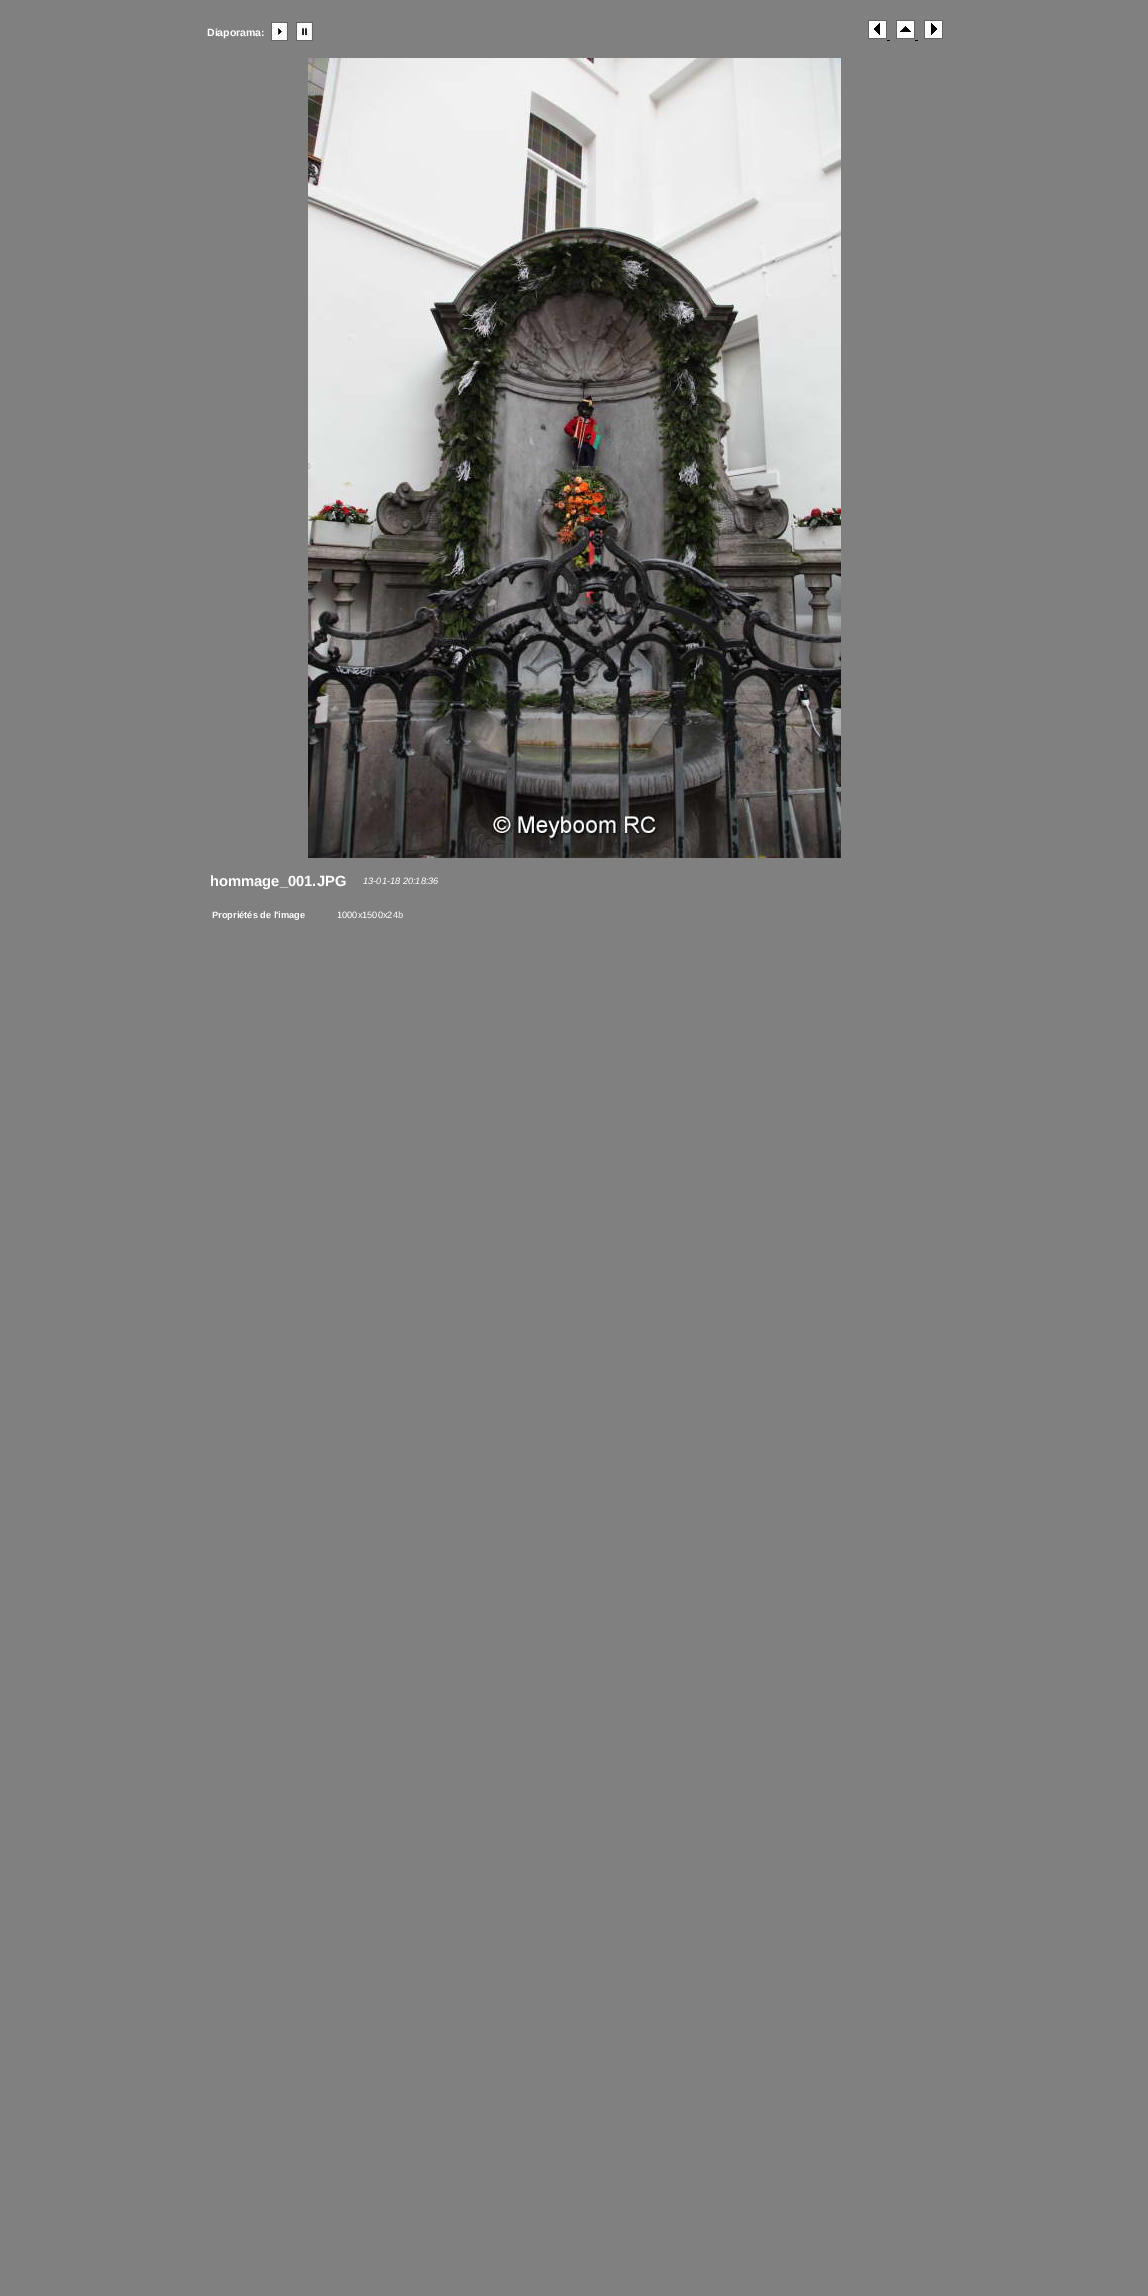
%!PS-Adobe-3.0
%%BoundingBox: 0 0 1148 2296
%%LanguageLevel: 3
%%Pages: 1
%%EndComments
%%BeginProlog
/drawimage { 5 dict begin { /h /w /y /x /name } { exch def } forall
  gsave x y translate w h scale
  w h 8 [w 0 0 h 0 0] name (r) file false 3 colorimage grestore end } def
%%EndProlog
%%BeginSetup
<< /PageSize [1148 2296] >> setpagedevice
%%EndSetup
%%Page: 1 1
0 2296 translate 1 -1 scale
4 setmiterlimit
0.502 setgray
0 0 1148 2296 rectfill
(images/1.raw) 271 22 17 19 drawimage
(images/2.raw) 296 22 17 19 drawimage
(images/3.raw) 868 20 19 19 drawimage
(images/4.raw) 896 20 19 19 drawimage
(images/5.raw) 924 20 19 19 drawimage
0 setgray
887 40 3 1 rectfill
915 40 3 1 rectfill
(images/6.raw) 308 58 533 800 drawimage
/LiberationSans-Bold [10.5 0 0 -10.5 0 0] selectfont
1 setgray
207 36 moveto (Diaporama:) show
/LiberationSans-Bold [14.75 0 0 -14.75 0 0] selectfont
210 886 moveto (hommage_001.JPG) show
/LiberationSans-Italic [9.25 0 0 -9.25 0 0] selectfont
363 884 moveto (13-01-18 20:18:36) show
/LiberationSans-Bold [9.25 0 0 -9.25 0 0] selectfont
212 918 moveto (Propriétés de l'image) show
/LiberationSans-Regular [9.25 0 0 -9.25 0 0] selectfont
337 918 moveto (1000x1500x24b) show
showpage
%%EOF
